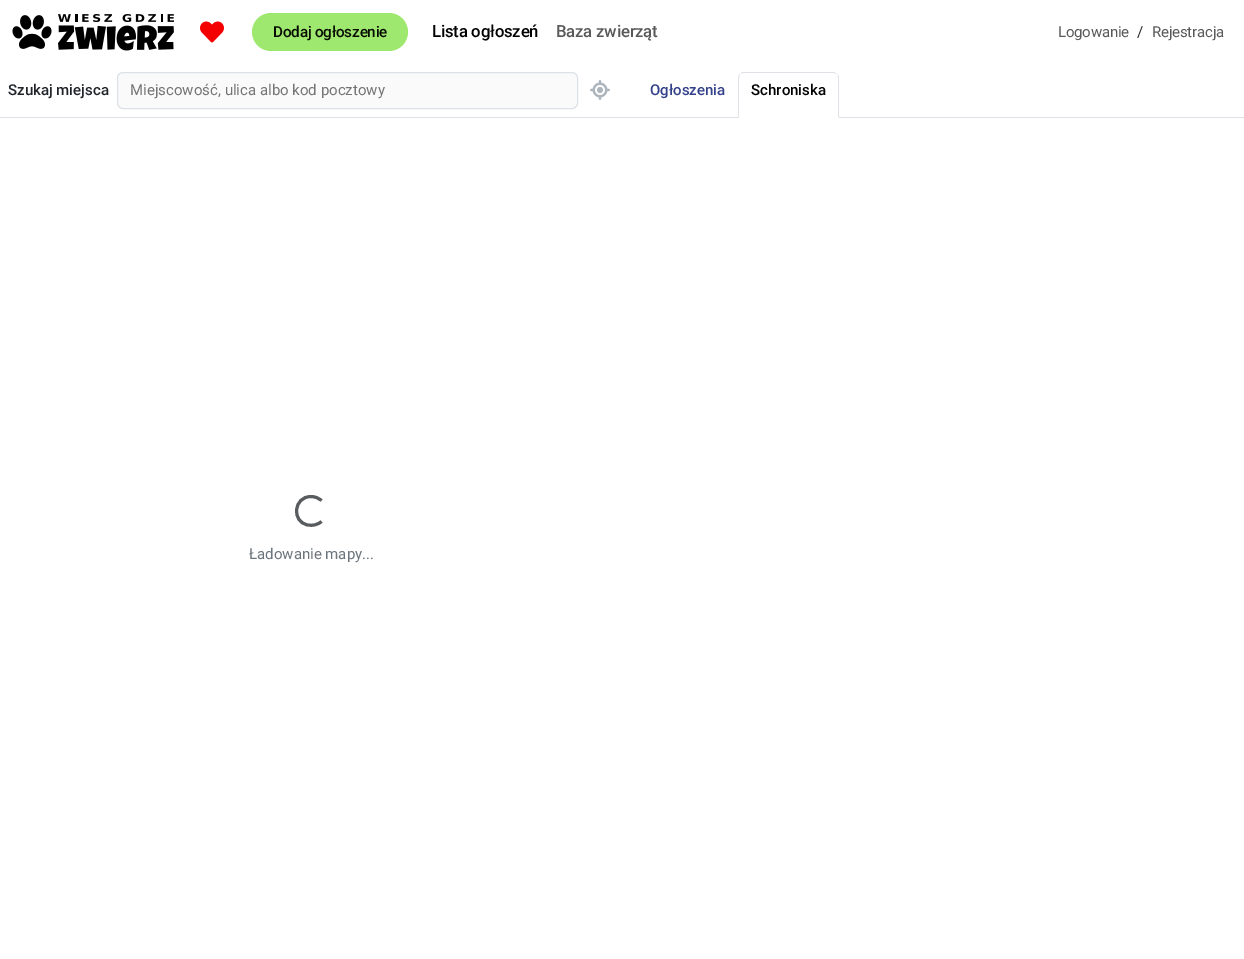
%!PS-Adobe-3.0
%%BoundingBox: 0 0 1244 959
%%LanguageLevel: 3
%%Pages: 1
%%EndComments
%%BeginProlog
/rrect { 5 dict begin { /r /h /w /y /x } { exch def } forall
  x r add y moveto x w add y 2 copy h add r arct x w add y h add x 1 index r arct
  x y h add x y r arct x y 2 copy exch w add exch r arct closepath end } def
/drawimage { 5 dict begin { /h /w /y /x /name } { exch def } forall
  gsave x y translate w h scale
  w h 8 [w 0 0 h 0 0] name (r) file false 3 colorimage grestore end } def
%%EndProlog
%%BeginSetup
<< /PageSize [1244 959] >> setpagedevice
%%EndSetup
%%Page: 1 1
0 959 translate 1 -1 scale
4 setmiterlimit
1 setgray
0 0 1244 959 rectfill
(images/1.raw) 12 15 40 34 drawimage
(images/2.raw) 58 14 116 37 drawimage
(images/3.raw) 200 21 24 22 drawimage
0.624 0.91 0.439 setrgbcolor
252 13 156 38 19 rrect fill
0.871 0.886 0.902 setrgbcolor
0 117 1244 1 rectfill
0.98 setgray
117.5 72.5 460 36 5.5 rrect gsave fill grestore
0.871 0.886 0.902 setrgbcolor
stroke
(images/4.raw) 590 80 20 20 drawimage
0.349 0.361 0.373 setrgbcolor
3 setlinewidth
newpath 321.5 521.5 moveto 318 524.5 313 526 308 525 curveto 291 522 293.5 496.5 311 496.5 curveto 315 496.5 318.5 498 321.5 500.5 curveto stroke
0.871 0.886 0.902 setrgbcolor
newpath 744 72 moveto 742 72 741 73 740 74 curveto 743 73 lineto 834 73 lineto 837 74 lineto 836 73 834 72 833 72 curveto closepath fill
newpath 839 118 moveto 839 78 lineto 839 76 838 75 837 74 curveto 838 75 838 76 838 78 curveto 838 117 lineto closepath fill
1 setgray
newpath 839 118 moveto 838 117 lineto 739 117 lineto 738 118 lineto closepath fill
0.871 0.886 0.902 setrgbcolor
newpath 738 118 moveto 739 117 lineto 739 78 lineto 739 76 740 75 740 74 curveto 739 75 738 76 738 78 curveto closepath fill
/Roboto-Medium [15.25 0 0 -15.25 0 0] selectfont
0.024 0.047 0.004 setrgbcolor
273 37 moveto -0.2 0 (Dodaj ogłoszenie) ashow
/Roboto-Medium [16.75 0 0 -16.75 0 0] selectfont
0 setgray
432 37 moveto -0.2 0 (Lista ogłoszeń) ashow
0.349 setgray
556 37 moveto -0.2 0 (Baza zwierząt) ashow
/Roboto-Regular [15 0 0 -15 0 0] selectfont
1058 37 moveto -0.2 0 (Logowanie) ashow
0.129 0.145 0.161 setrgbcolor
1137 37 moveto (/) show
0.349 setgray
1152 37 moveto -0.2 0 (Rejestracja) ashow
/Roboto-Medium [15 0 0 -15 0 0] selectfont
0.129 0.145 0.161 setrgbcolor
8 95 moveto (Szukaj miejsca) show
/Roboto-Regular [15 0 0 -15 0 0] selectfont
0.459 setgray
130 95 moveto (Miejscowość, ulica albo kod pocztowy) show
0.424 0.459 0.49 setrgbcolor
249 559 moveto (Ładowanie mapy...) show
/Roboto-Medium [15 0 0 -15 0 0] selectfont
0.2 0.251 0.541 setrgbcolor
650 95 moveto (Ogłoszenia) show
0 setgray
751 95 moveto (Schroniska) show
showpage
%%EOF
